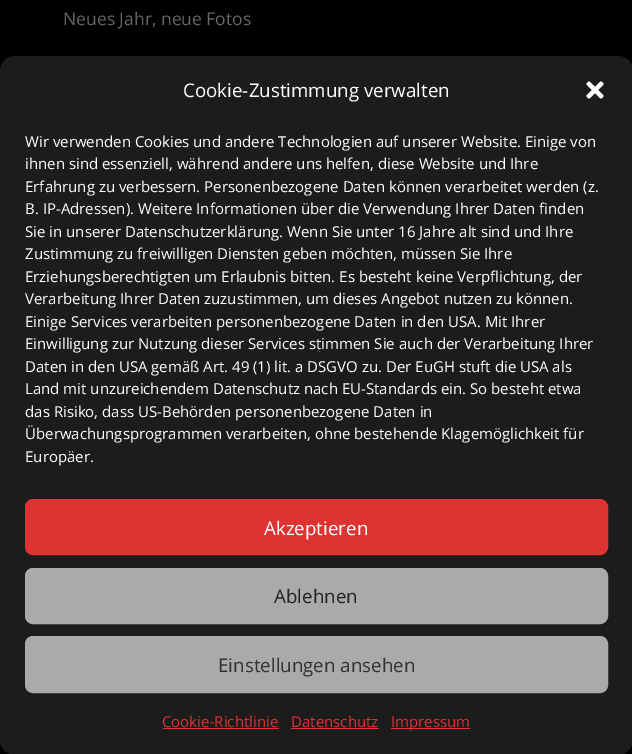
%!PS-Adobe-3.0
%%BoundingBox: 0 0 632 754
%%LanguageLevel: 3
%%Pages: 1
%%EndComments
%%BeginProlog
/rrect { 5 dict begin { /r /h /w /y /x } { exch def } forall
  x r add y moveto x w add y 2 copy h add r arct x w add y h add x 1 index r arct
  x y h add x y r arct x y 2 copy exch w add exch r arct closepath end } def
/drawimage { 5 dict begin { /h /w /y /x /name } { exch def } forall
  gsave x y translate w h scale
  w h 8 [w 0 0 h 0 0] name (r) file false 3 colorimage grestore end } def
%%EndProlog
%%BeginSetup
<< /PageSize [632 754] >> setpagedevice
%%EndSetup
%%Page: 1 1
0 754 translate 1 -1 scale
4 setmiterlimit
0 setgray
0 0 632 754 rectfill
0.11 setgray
0 56 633 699 15 rrect fill
(images/1.raw) 586 81 18 18 drawimage
0.867 0.2 0.2 setrgbcolor
25.5 499.5 582 55 7.5 rrect gsave fill grestore
stroke
0.667 setgray
25.5 568.5 582 55 7.5 rrect gsave fill grestore
stroke
25.5 636.5 582 56 7.5 rrect gsave fill grestore
stroke
0.867 0.2 0.2 setrgbcolor
163 728 116 1 rectfill
291 728 88 1 rectfill
391 728 79 1 rectfill
/OpenSans-Regular [17.5 0 0 -17.5 0 0] selectfont
0.4 setgray
63 25 moveto (Neues Jahr, neue Fotos) show
/OpenSans-Regular [18.75 0 0 -18.75 0 0] selectfont
1 setgray
183 97 moveto (Cookie-Zustimmung verwalten) show
/OpenSans-Regular [15 0 0 -15 0 0] selectfont
25 147 moveto (Wir verwenden Cookies und andere Technologien auf unserer Website. Einige von) show
25 169 moveto (ihnen sind essenziell, während andere uns helfen, diese Website und Ihre) show
25 192 moveto (Erfahrung zu verbessern. Personenbezogene Daten können verarbeitet werden \(z.) show
25 214 moveto (B. IP-Adressen\). Weitere Informationen über die Verwendung Ihrer Daten finden) show
25 237 moveto (Sie in unserer Datenschutzerklärung. Wenn Sie unter 16 Jahre alt sind und Ihre) show
25 259 moveto (Zustimmung zu freiwilligen Diensten geben möchten, müssen Sie Ihre) show
25 282 moveto (Erziehungsberechtigten um Erlaubnis bitten. Es besteht keine Verpflichtung, der) show
25 304 moveto (Verarbeitung Ihrer Daten zuzustimmen, um dieses Angebot nutzen zu können.) show
25 327 moveto (Einige Services verarbeiten personenbezogene Daten in den USA. Mit Ihrer) show
25 349 moveto (Einwilligung zur Nutzung dieser Services stimmen Sie auch der Verarbeitung Ihrer) show
25 372 moveto (Daten in den USA gemäß Art. 49 \(1\) lit. a DSGVO zu. Der EuGH stuft die USA als) show
25 394 moveto (Land mit unzureichendem Datenschutz nach EU-Standards ein. So besteht etwa) show
25 417 moveto (das Risiko, dass US-Behörden personenbezogene Daten in) show
25 439 moveto (Überwachungsprogrammen verarbeiten, ohne bestehende Klagemöglichkeit für) show
25 462 moveto (Europäer.) show
/OpenSans-Regular [18.75 0 0 -18.75 0 0] selectfont
264 535 moveto (Akzeptieren) show
0.133 setgray
274 603 moveto (Ablehnen) show
0.2 setgray
218 672 moveto (Einstellungen ansehen) show
/OpenSans-Regular [15 0 0 -15 0 0] selectfont
0.867 0.2 0.2 setrgbcolor
162 727 moveto (Cookie-Richtlinie) show
291 727 moveto (Datenschutz) show
391 727 moveto (Impressum) show
showpage
%%EOF
